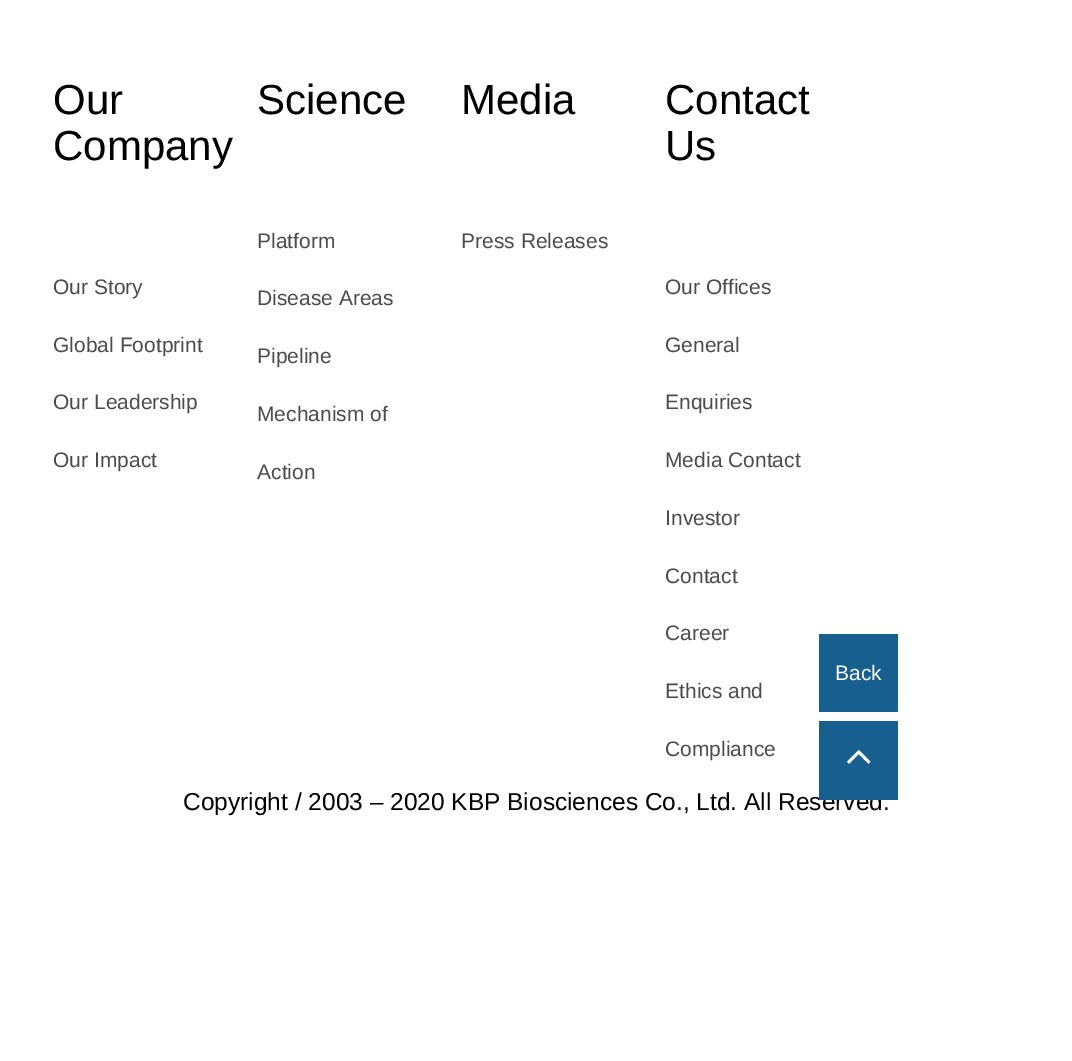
%!PS-Adobe-3.0
%%BoundingBox: 0 0 1072 1061
%%LanguageLevel: 3
%%Pages: 1
%%EndComments
%%BeginProlog
/drawimage { 5 dict begin { /h /w /y /x /name } { exch def } forall
  gsave x y translate w h scale
  w h 8 [w 0 0 h 0 0] name (r) file false 3 colorimage grestore end } def
%%EndProlog
%%BeginSetup
<< /PageSize [1072 1061] >> setpagedevice
%%EndSetup
%%Page: 1 1
0 1061 translate 1 -1 scale
4 setmiterlimit
1 setgray
0 0 1072 1061 rectfill
0.09 0.373 0.561 setrgbcolor
819 634 79 78 rectfill
/LiberationSans-Regular [42 0 0 -42 0 0] selectfont
0 setgray
53 114 moveto (Our) show
53 160 moveto (Company) show
/LiberationSans-Regular [21 0 0 -21 0 0] selectfont
0.298 setgray
53 294 moveto (Our Story) show
53 352 moveto (Global Footprint) show
53 409 moveto (Our Leadership) show
53 467 moveto (Our Impact) show
/LiberationSans-Regular [42 0 0 -42 0 0] selectfont
0 setgray
257 114 moveto (Science) show
/LiberationSans-Regular [21 0 0 -21 0 0] selectfont
0.298 setgray
257 248 moveto (Platform) show
257 305 moveto (Disease Areas) show
257 363 moveto (Pipeline) show
257 421 moveto (Mechanism of) show
257 479 moveto (Action) show
/LiberationSans-Regular [42 0 0 -42 0 0] selectfont
0 setgray
461 114 moveto (Media) show
/LiberationSans-Regular [21 0 0 -21 0 0] selectfont
0.298 setgray
461 248 moveto (Press Releases) show
/LiberationSans-Regular [42 0 0 -42 0 0] selectfont
0 setgray
665 114 moveto (Contact) show
665 160 moveto (Us) show
/LiberationSans-Regular [21 0 0 -21 0 0] selectfont
0.298 setgray
665 294 moveto (Our Offices) show
665 352 moveto (General) show
665 409 moveto (Enquiries) show
665 467 moveto (Media Contact) show
665 525 moveto (Investor) show
665 583 moveto (Contact) show
665 640 moveto (Career) show
665 698 moveto (Ethics and) show
665 756 moveto (Compliance) show
/LiberationSans-Regular [24.5 0 0 -24.5 0 0] selectfont
0 setgray
183 810 moveto (Copyright / 2003 – 2020 KBP Biosciences Co., Ltd. All Reserved.) show
/LiberationSans-Regular [21 0 0 -21 0 0] selectfont
1 setgray
835 680 moveto (Back) show
0.09 0.373 0.561 setrgbcolor
819 721 79 79 rectfill
(images/1.raw) 847 750 24 14 drawimage
showpage
%%EOF
